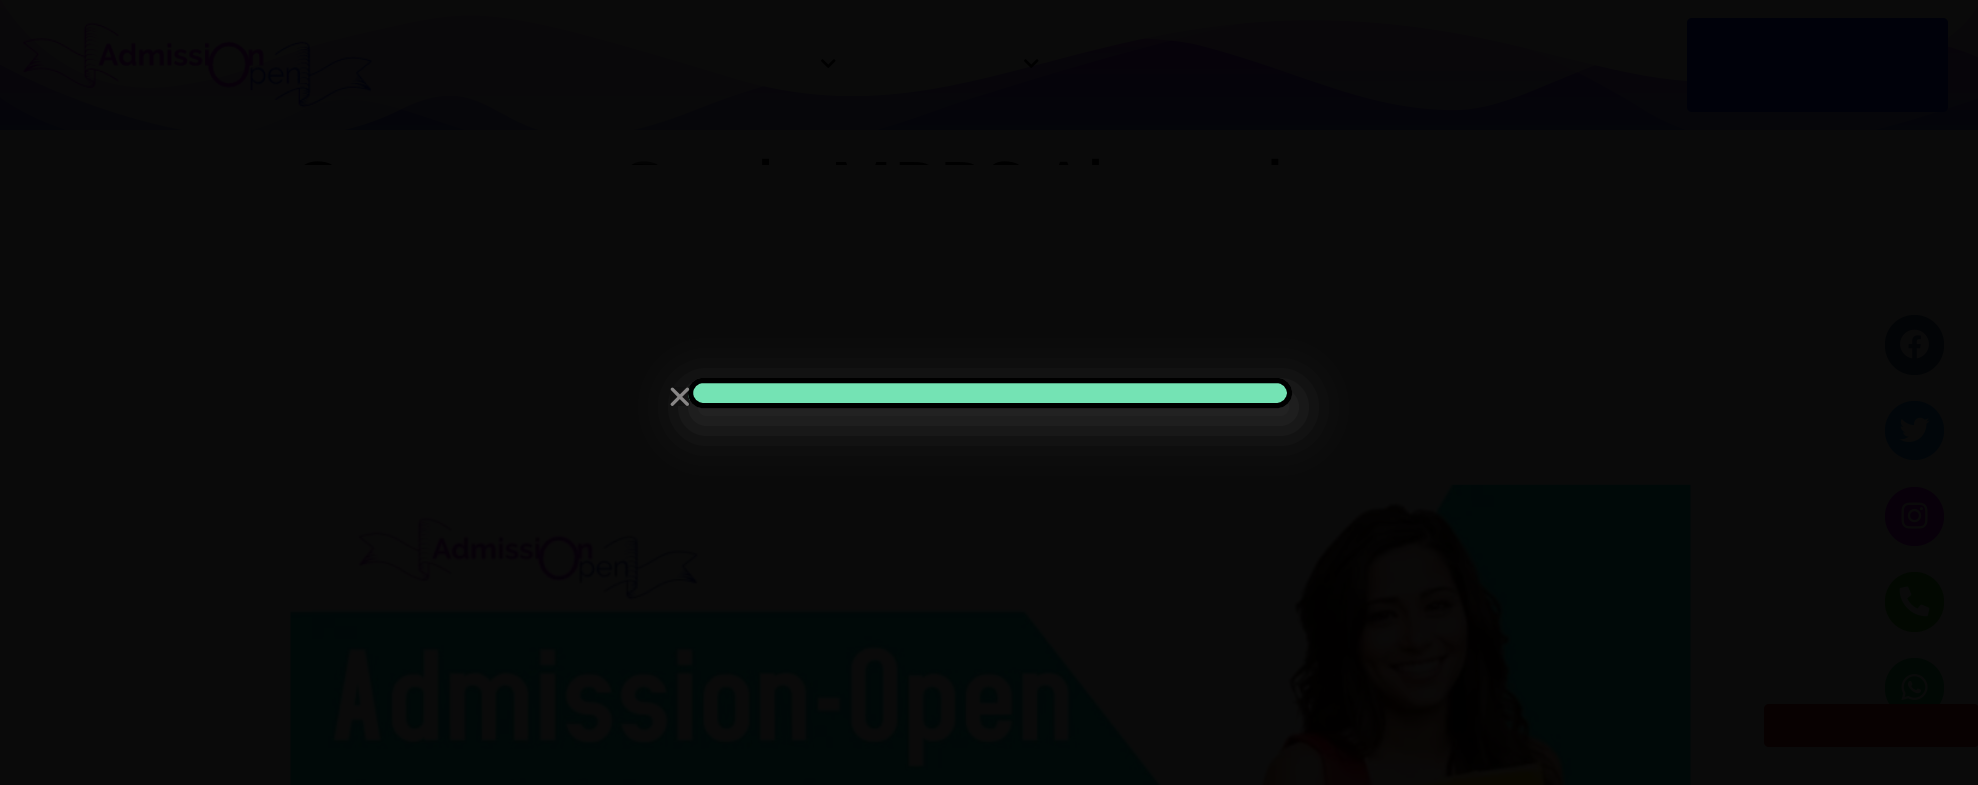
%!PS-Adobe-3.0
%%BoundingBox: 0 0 1978 785
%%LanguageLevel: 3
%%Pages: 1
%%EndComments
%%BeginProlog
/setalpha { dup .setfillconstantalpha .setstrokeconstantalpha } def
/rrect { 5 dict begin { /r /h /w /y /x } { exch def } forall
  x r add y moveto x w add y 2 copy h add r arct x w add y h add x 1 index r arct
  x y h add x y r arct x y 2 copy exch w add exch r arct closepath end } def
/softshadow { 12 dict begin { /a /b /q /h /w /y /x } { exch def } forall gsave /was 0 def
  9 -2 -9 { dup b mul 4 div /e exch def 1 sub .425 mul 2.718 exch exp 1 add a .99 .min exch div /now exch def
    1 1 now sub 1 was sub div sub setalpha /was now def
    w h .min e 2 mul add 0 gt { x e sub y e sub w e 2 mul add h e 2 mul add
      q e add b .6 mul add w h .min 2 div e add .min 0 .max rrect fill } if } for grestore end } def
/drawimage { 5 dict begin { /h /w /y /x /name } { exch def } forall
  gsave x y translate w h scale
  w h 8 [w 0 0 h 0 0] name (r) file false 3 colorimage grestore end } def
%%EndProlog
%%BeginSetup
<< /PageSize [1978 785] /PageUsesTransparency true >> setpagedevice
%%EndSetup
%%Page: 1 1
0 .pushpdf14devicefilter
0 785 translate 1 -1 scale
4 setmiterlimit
0.039 setgray
0 0 1978 785 rectfill
gsave newpath 0 0 moveto 1978 0 lineto 1978 130 lineto 0 130 lineto closepath clip newpath
<< /ShadingType 2 /ColorSpace /DeviceRGB /Coords [990 0 990 130] /Extend [true true] /Function << /FunctionType 2 /Domain [0 1] /C0 [0.031 0 0.039] /C1 [0.016 0.02 0.039] /N 1 >> >> shfill grestore
(images/1.raw) 0 0 1978 165 drawimage
(images/2.raw) 22 22 351 86 drawimage
(images/3.raw) 821 59 15 9 drawimage
(images/4.raw) 1024 59 15 9 drawimage
0 0.004 0.039 setrgbcolor
1687 18 261 94 5 rrect fill
(images/12.raw) 290 484 1401 301 drawimage
0.2 setgray
683 383 621 48 24 20 0.68 softshadow
5 setlinewidth
690.5 380.5 599 25 12.5 rrect stroke
(images/5.raw) 670 387 19 19 drawimage
0.008 0.016 0.024 setrgbcolor
1885 315 59 60 29.5 rrect fill
(images/6.raw) 1900 329 29 30 drawimage
0.004 0.024 0.039 setrgbcolor
newpath 1914.5 430.5 29.5 0 360 arc closepath fill
(images/7.raw) 1899 417 31 25 drawimage
0.031 0 0.039 setrgbcolor
newpath 1914.5 516.5 29.5 0 360 arc closepath fill
(images/8.raw) 1901 502 27 27 drawimage
0.008 0.031 0.004 setrgbcolor
1885 572 59 60 29.5 rrect fill
(images/9.raw) 1899 586 31 31 drawimage
0.004 0.031 0.016 setrgbcolor
1885 658 59 60 29.5 rrect fill
(images/10.raw) 1901 674 27 26 drawimage
0.031 0.004 0.004 setrgbcolor
1764 704 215 43 5 rrect fill
0.455 0.89 0.706 setrgbcolor
690.5 380.5 599 25 12.5 rrect gsave fill grestore
0 setgray
stroke
(images/11.raw) 670 387 20 19 drawimage
.poppdf14devicefilter showpage
%%EOF
